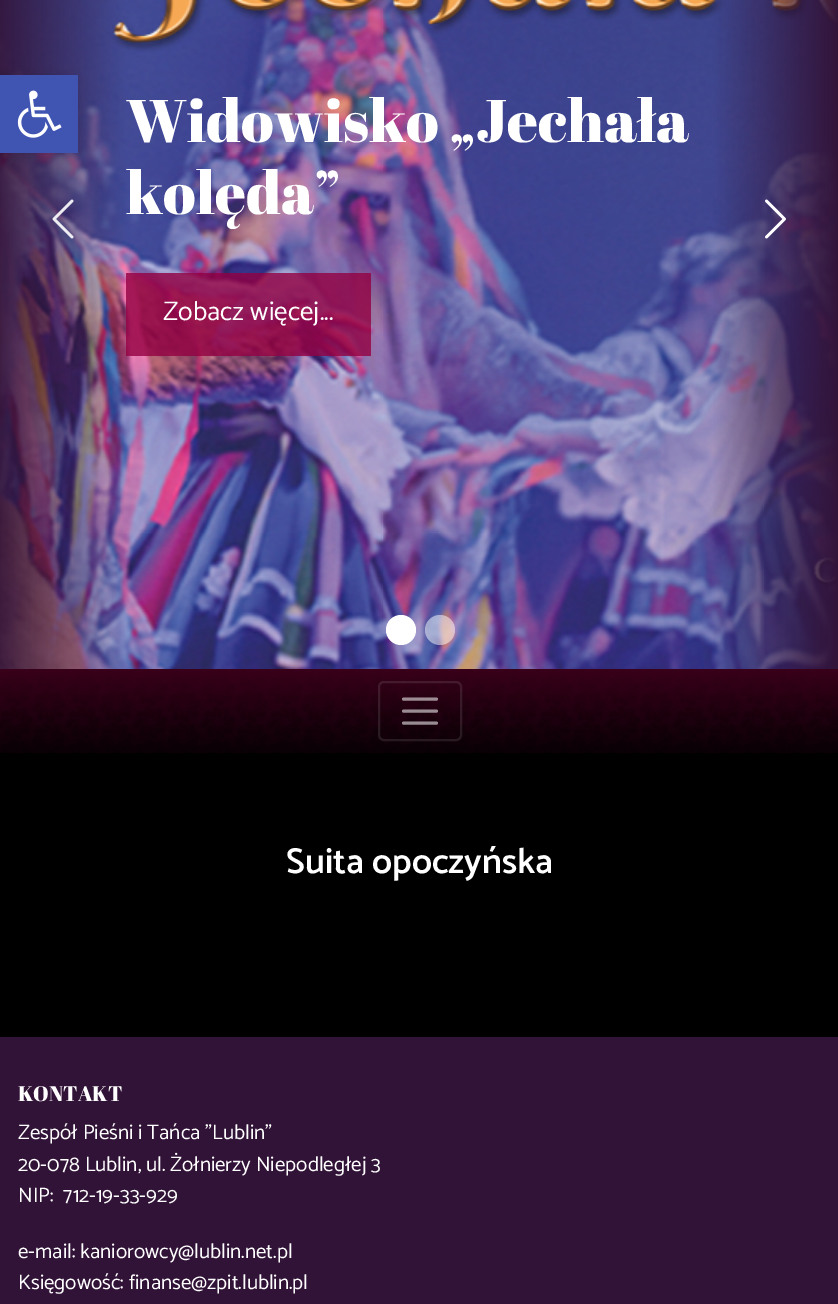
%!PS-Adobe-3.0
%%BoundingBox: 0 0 838 1304
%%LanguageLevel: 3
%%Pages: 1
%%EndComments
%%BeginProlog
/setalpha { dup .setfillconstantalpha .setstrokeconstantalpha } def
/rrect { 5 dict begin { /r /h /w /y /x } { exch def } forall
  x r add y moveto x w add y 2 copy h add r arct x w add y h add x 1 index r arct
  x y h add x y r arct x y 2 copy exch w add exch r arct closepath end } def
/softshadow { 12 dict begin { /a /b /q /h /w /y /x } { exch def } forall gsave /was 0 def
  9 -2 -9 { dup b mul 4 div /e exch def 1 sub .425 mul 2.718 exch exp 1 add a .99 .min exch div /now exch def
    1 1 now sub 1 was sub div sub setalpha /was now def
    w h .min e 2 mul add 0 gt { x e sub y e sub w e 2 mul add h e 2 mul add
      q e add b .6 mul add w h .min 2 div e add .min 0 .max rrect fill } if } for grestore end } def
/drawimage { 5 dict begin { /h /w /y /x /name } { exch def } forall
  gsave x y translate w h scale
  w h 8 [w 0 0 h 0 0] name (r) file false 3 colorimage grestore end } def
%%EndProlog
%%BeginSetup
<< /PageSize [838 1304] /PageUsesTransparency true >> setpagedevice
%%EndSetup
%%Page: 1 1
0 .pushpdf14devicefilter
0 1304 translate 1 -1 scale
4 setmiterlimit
0 setgray
0 0 838 1304 rectfill
(images/3.raw) 0 0 838 669 drawimage
0 75 78 78 0 7.5 0.1 softshadow
0.251 0.329 0.698 setrgbcolor
0 75 78 78 rectfill
(images/1.raw) 17 90 45 48 drawimage
(images/2.raw) 52 199 22 40 drawimage
0.8 setalpha
0.576 0 0.259 setrgbcolor
126 273 245 83 rectfill
1 setalpha
(images/4.raw) 765 199 21 40 drawimage
1 setgray
newpath 401 630 15 0 360 arc closepath fill
0.5 setalpha
newpath 440 630 15 0 360 arc closepath fill
1 setalpha
(images/5.raw) 0 669 838 84 drawimage
0.1 setalpha
2 setlinewidth
379 682 82 58 5 rrect stroke
0.55 setalpha
3 setlinewidth
1 setlinecap
newpath 403.5 699 moveto 436.5 699 lineto 403.5 711 moveto 436.5 711 lineto 403.5 723 moveto 436.5 723 lineto stroke
1 setalpha
0.196 0.075 0.22 setrgbcolor
0 1037 838 267 rectfill
/AbrilFatface-Regular [60 0 0 -60 0 0] selectfont
1 setgray
126 142 moveto (Widowisko „Jechała) show
126 214 moveto (kolęda”) show
/Catamaran-Regular [27 0 0 -27 0 0] selectfont
163 320 moveto (Zobacz więcej...) show
/Catamaran-SemiBold [36 0 0 -36 0 0] selectfont
286 873 moveto (Suita opoczyńska) show
/AbrilFatface-Regular [21 0 0 -21 0 0] selectfont
18 1101 moveto (KONTAKT) show
/Catamaran-Regular [21 0 0 -21 0 0] selectfont
18 1139 moveto (Zespół Pieśni i Tańca "Lublin") show
18 1171 moveto (20-078 Lublin, ul. Żołnierzy Niepodległej 3) show
18 1202 moveto (NIP:  712-19-33-929) show
18 1258 moveto (e-mail: kaniorowcy@lublin.net.pl) show
18 1289 moveto (Księgowość: finanse@zpit.lublin.pl) show
.poppdf14devicefilter showpage
%%EOF
